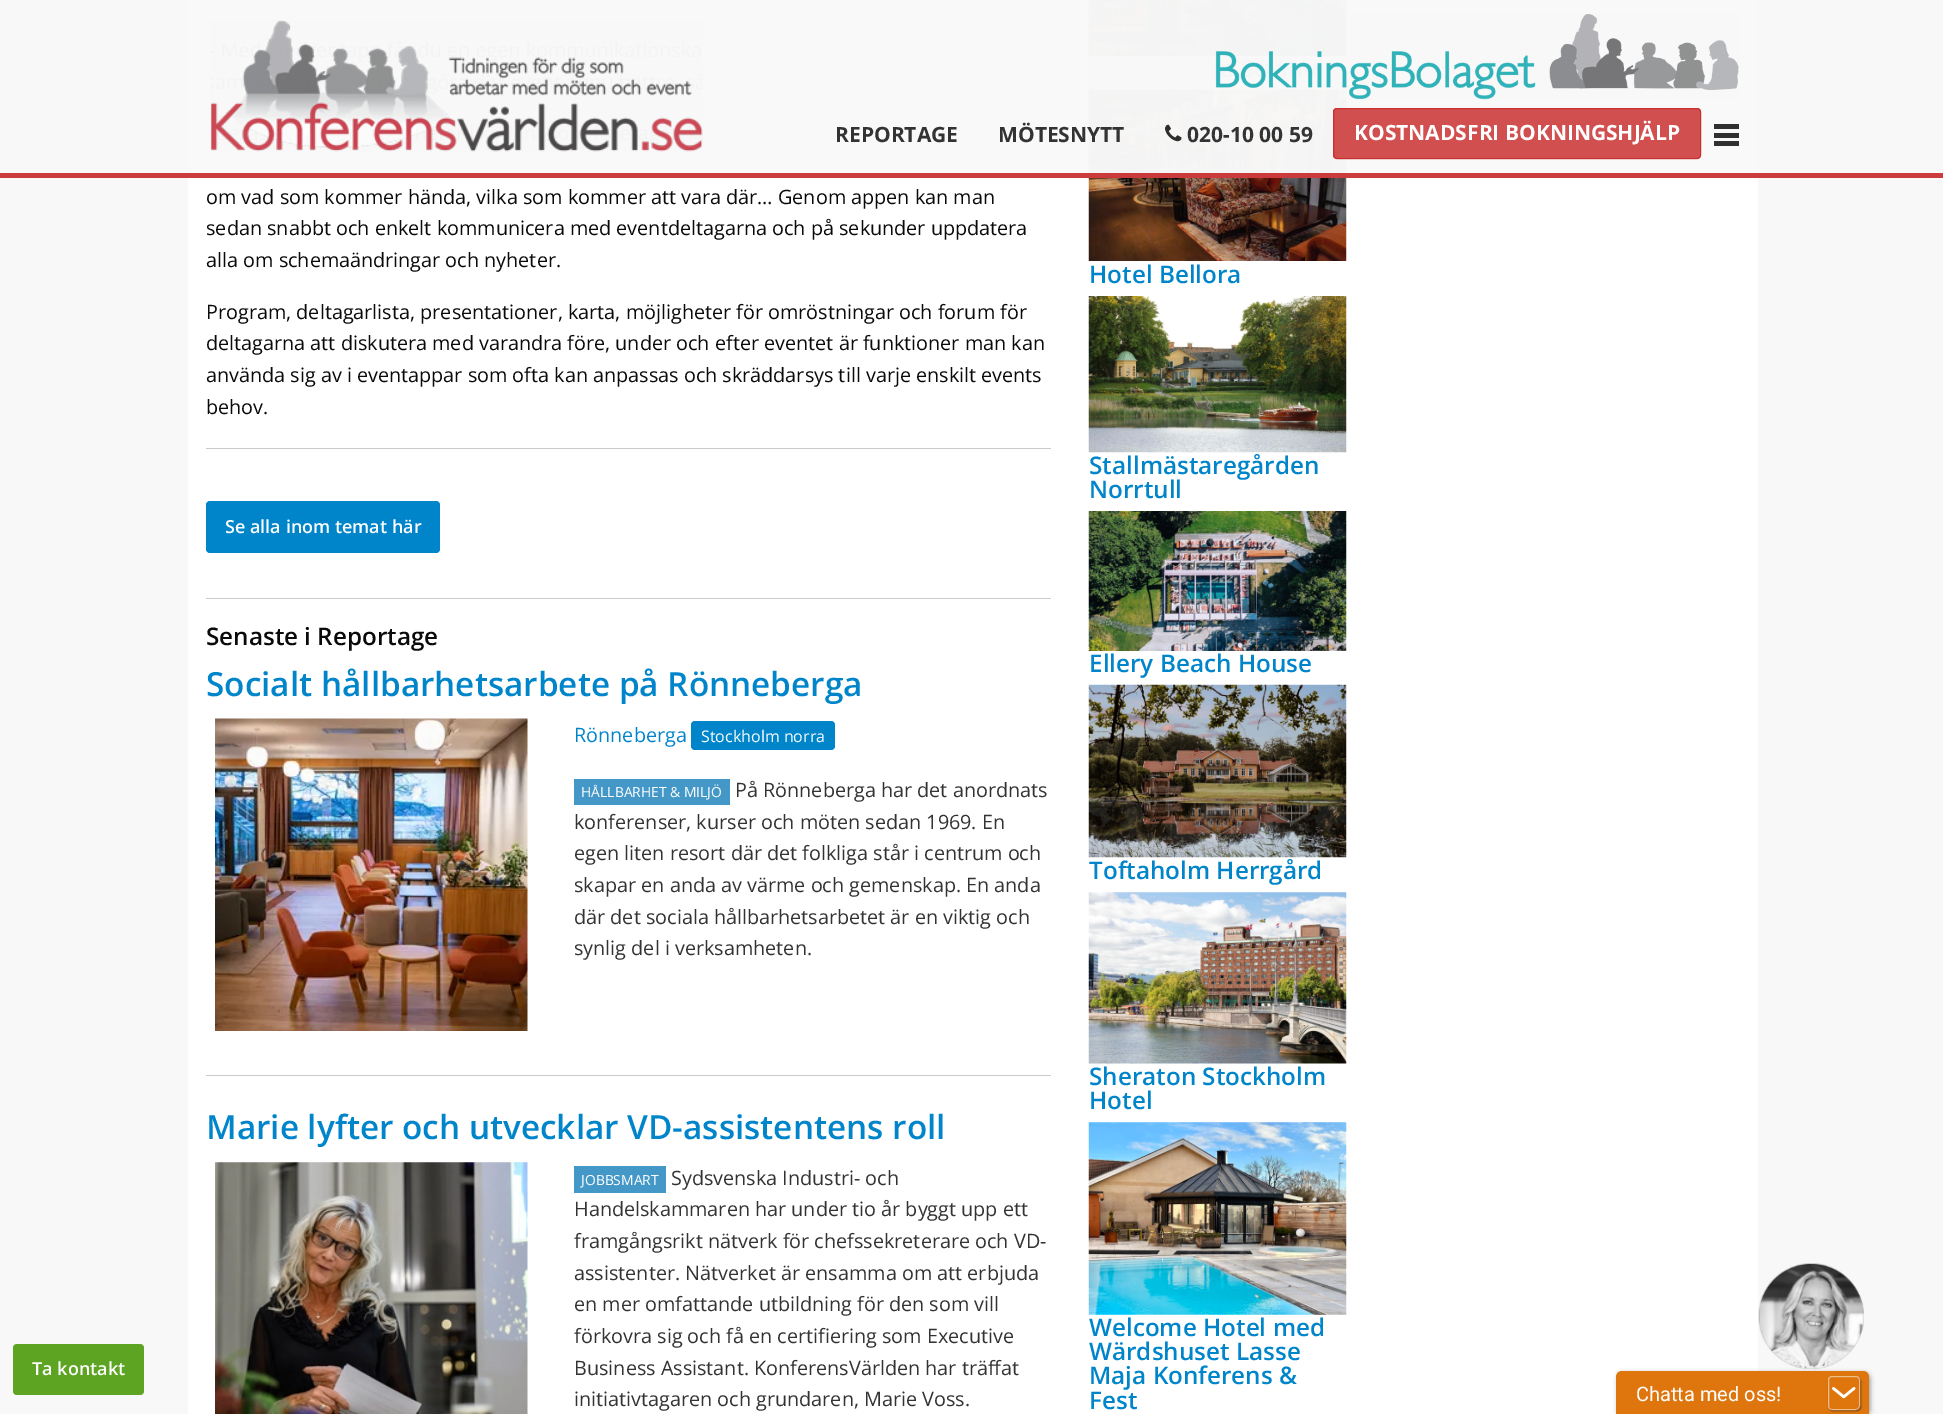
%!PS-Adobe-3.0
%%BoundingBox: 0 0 1943 1414
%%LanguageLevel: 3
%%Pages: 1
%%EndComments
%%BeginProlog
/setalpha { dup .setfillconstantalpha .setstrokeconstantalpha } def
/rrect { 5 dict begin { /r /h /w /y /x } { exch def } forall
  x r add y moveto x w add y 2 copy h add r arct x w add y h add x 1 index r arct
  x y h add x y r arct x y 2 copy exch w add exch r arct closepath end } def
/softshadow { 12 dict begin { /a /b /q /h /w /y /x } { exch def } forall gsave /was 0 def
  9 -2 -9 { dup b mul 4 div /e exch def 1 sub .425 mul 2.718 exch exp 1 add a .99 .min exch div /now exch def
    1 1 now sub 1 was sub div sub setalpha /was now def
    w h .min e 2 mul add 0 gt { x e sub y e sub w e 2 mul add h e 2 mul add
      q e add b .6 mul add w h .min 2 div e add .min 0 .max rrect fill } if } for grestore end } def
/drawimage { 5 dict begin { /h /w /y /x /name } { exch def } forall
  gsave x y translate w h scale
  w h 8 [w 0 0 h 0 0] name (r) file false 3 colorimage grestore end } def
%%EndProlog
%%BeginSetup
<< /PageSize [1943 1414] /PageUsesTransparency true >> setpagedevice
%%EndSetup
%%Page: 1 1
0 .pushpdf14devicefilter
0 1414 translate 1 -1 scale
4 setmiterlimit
0.973 setgray
0 0 1943 1414 rectfill
1 setgray
188 0 1570 1414 rectfill
(images/6.raw) 1088 0 259 56 drawimage
(images/7.raw) 1088 89 259 172 drawimage
0.9 setalpha
0.973 setgray
188 0 1570 178 rectfill
0.784 0.157 0.157 setrgbcolor
0 173 1943 5 rectfill
0.81 setalpha
0.973 setgray
1088 0 259 173 rectfill
1 setalpha
(images/1.raw) 210 20 493 132 drawimage
(images/2.raw) 1215 14 524 86 drawimage
(images/3.raw) 1165 124 17 18 drawimage
0.81 setalpha
0.784 0.157 0.157 setrgbcolor
1333 108 368 51 4 rrect fill
1333.5 108.5 367 50 3.5 rrect stroke
1 setalpha
0.188 setgray
1714 124 25 5 rectfill
1714 133 25 5 rectfill
1714 141 25 5 rectfill
0.365 0.643 0.137 setrgbcolor
13 1344 131 51 4 rrect fill
0.792 setgray
206 448 845 1 rectfill
0 0.522 0.796 setrgbcolor
206 501 234 52 4 rrect fill
0.792 setgray
206 598 845 1 rectfill
(images/4.raw) 215 718 313 313 drawimage
0 0.522 0.796 setrgbcolor
691 721 144 29 4 rrect fill
0.267 0.596 0.784 setrgbcolor
574 779 156 26 rectfill
0.792 setgray
206 1075 845 1 rectfill
(images/5.raw) 215 1162 313 252 drawimage
0.267 0.596 0.784 setrgbcolor
574 1166 92 27 rectfill
(images/8.raw) 1088 296 259 157 drawimage
(images/9.raw) 1088 511 259 140 drawimage
(images/10.raw) 1088 684 259 174 drawimage
(images/11.raw) 1088 892 259 172 drawimage
(images/12.raw) 1088 1122 259 193 drawimage
0 setgray
1618 1373 252 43 6 2.5 0.4 softshadow
(images/13.raw) 1758 1263 106 106 drawimage
0.871 0.463 0.051 setrgbcolor
newpath 1622 1371 moveto 1863 1371 lineto 1866.5 1371 1869 1373.5 1869 1377 curveto 1869 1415 lineto 1616 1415 lineto 1616 1377 lineto 1616 1373.5 1618.5 1371 1622 1371 curveto closepath fill
gsave
newpath 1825 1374 moveto 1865 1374 lineto 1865 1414 lineto 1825 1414 lineto closepath 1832 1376 moveto 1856 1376 lineto 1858 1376 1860 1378 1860 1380 curveto 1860 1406 lineto 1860 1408 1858 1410 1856 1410 curveto 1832 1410 lineto 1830 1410 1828 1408 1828 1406 curveto 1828 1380 lineto 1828 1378 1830 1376 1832 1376 curveto closepath eoclip newpath
0 setgray
1829 1378 32 33 4 1 0.5 softshadow
grestore
0.5 setalpha
1 setgray
1828.5 1376.5 31 33 3.5 rrect stroke
1 setalpha
(images/14.raw) 1832 1387 24 12 drawimage
/OpenSans-Bold [21 0 0 -21 0 0] selectfont
0.2 setgray
835 142 moveto (REPORTAGE) show
998 142 moveto (MÖTESNYTT) show
1187 142 moveto (020-10 00 59) show
0.996 setgray
1354 140 moveto (KOSTNADSFRI BOKNINGSHJÄLP) show
/OpenSans-SemiBold [18 0 0 -18 0 0] selectfont
32 1375 moveto (Ta kontakt) show
/OpenSans-Regular [19.8 0 0 -19.8 0 0] selectfont
0.039 setgray
206 204 moveto (om vad som kommer hända, vilka som kommer att vara där… Genom appen kan man) show
206 235 moveto (sedan snabbt och enkelt kommunicera med eventdeltagarna och på sekunder uppdatera) show
206 267 moveto (alla om schemaändringar och nyheter.) show
206 319 moveto (Program, deltagarlista, presentationer, karta, möjligheter för omröstningar och forum för) show
206 350 moveto (deltagarna att diskutera med varandra före, under och efter eventet är funktioner man kan) show
206 382 moveto (använda sig av i eventappar som ofta kan anpassas och skräddarsys till varje enskilt events) show
206 414 moveto (behov.) show
/OpenSans-SemiBold [18 0 0 -18 0 0] selectfont
0.996 setgray
225 533 moveto (Se alla inom temat här) show
/OpenSans-SemiBold [24.25 0 0 -24.25 0 0] selectfont
0.039 setgray
206 645 moveto (Senaste i Reportage) show
/OpenSans-SemiBold [33.3 0 0 -33.3 0 0] selectfont
0 0.522 0.796 setrgbcolor
206 696 moveto (Socialt hållbarhetsarbete på Rönneberga) show
/OpenSans-Regular [19.8 0 0 -19.8 0 0] selectfont
574 742 moveto (Rönneberga) show
/OpenSans-Regular [16 0 0 -16 0 0] selectfont
0.996 setgray
701 742 moveto (Stockholm norra) show
/OpenSans-Regular [13.9 0 0 -13.9 0 0] selectfont
581 797 moveto (HÅLLBARHET & MILJÖ) show
/OpenSans-Regular [19.8 0 0 -19.8 0 0] selectfont
0.2 setgray
735 797 moveto (På Rönneberga har det anordnats) show
574 829 moveto (konferenser, kurser och möten sedan 1969. En) show
574 860 moveto (egen liten resort där det folkliga står i centrum och) show
574 892 moveto (skapar en anda av värme och gemenskap. En anda) show
574 924 moveto (där det sociala hållbarhetsarbetet är en viktig och) show
574 955 moveto (synlig del i verksamheten.) show
/OpenSans-SemiBold [33.3 0 0 -33.3 0 0] selectfont
0 0.522 0.796 setrgbcolor
206 1139 moveto (Marie lyfter och utvecklar VD-assistentens roll) show
/OpenSans-Regular [13.9 0 0 -13.9 0 0] selectfont
0.996 setgray
581 1185 moveto (JOBBSMART) show
/OpenSans-Regular [19.8 0 0 -19.8 0 0] selectfont
0.2 setgray
671 1185 moveto (Sydsvenska Industri- och) show
574 1216 moveto (Handelskammaren har under tio år byggt upp ett) show
574 1248 moveto (framgångsrikt nätverk för chefssekreterare och VD-) show
574 1280 moveto (assistenter. Nätverket är ensamma om att erbjuda) show
574 1311 moveto (en mer omfattande utbildning för den som vill) show
574 1343 moveto (förkovra sig och få en certifiering som Executive) show
574 1375 moveto (Business Assistant. KonferensVärlden har träffat) show
574 1406 moveto (initiativtagaren och grundaren, Marie Voss.) show
/OpenSans-SemiBold [24.25 0 0 -24.25 0 0] selectfont
0 0.522 0.796 setrgbcolor
1089 283 moveto (Hotel Bellora) show
1089 474 moveto (Stallmästaregården) show
1089 498 moveto (Norrtull) show
1089 672 moveto (Ellery Beach House) show
1089 879 moveto (Toftaholm Herrgård) show
1089 1085 moveto (Sheraton Stockholm) show
1089 1109 moveto (Hotel) show
1089 1336 moveto (Welcome Hotel med) show
1089 1360 moveto (Wärdshuset Lasse) show
1089 1384 moveto (Maja Konferens &) show
1089 1409 moveto (Fest) show
/Roboto-Regular [20 0 0 -20 0 0] selectfont
0.996 setgray
1636 1401 moveto (Chatta med oss!) show
.poppdf14devicefilter showpage
%%EOF
